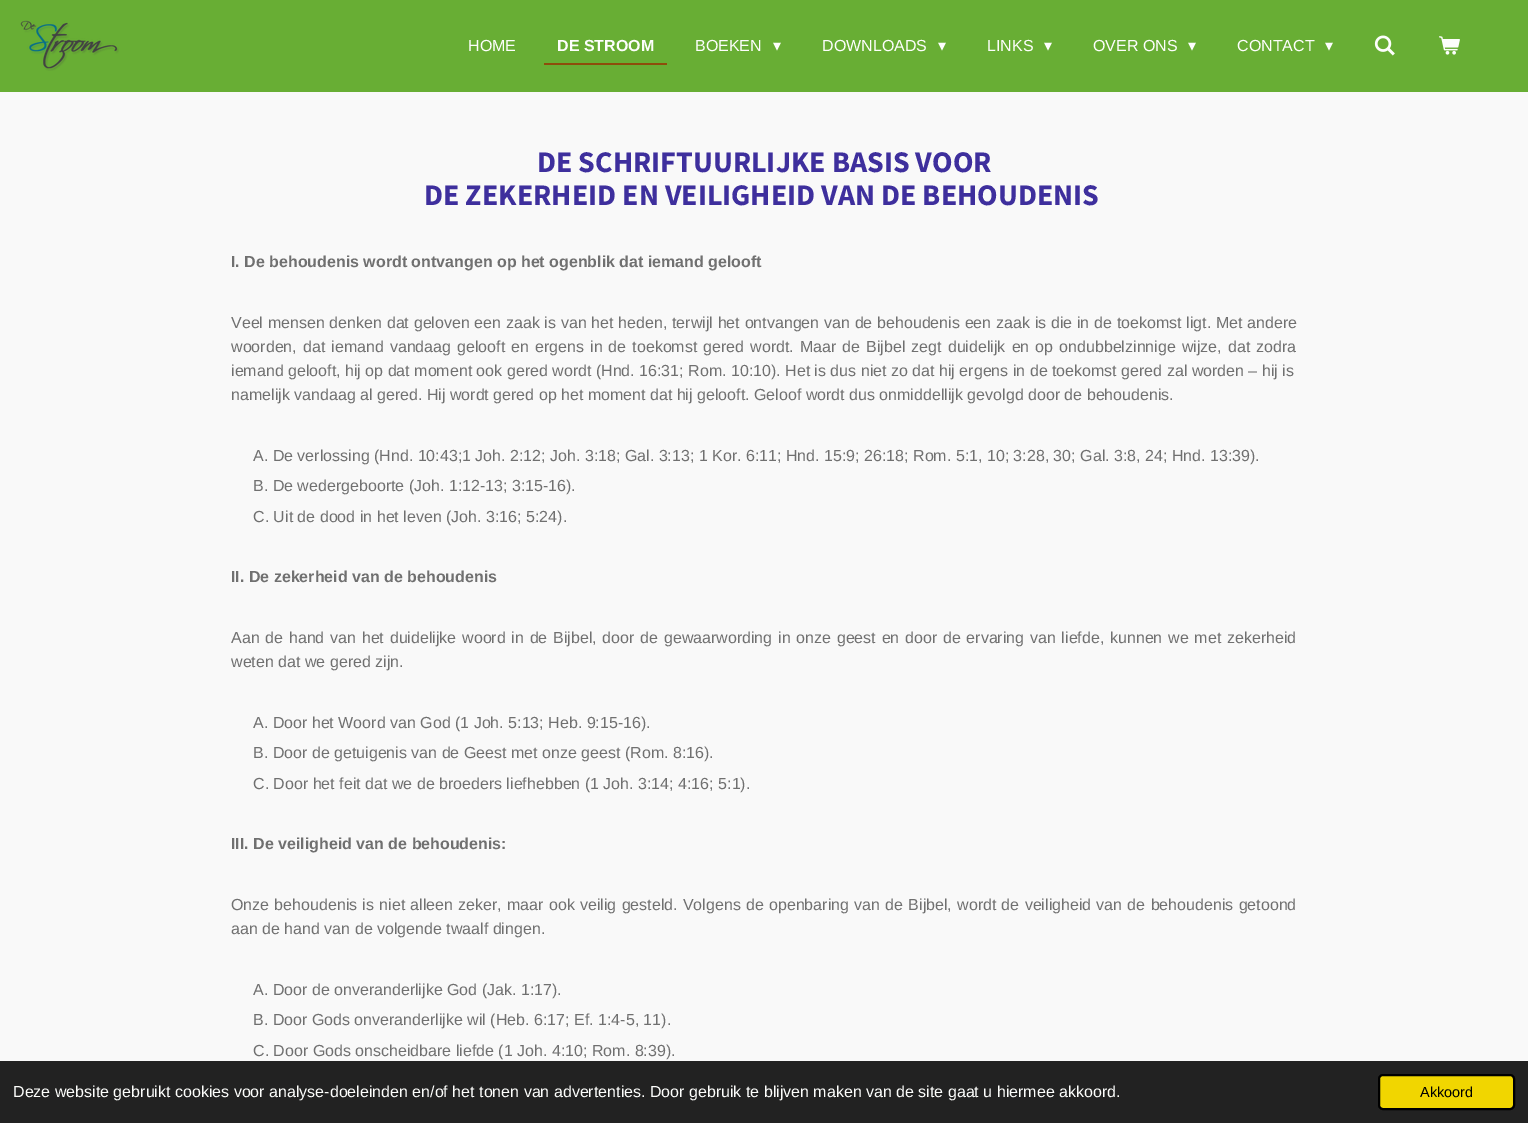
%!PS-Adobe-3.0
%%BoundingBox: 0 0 1528 1123
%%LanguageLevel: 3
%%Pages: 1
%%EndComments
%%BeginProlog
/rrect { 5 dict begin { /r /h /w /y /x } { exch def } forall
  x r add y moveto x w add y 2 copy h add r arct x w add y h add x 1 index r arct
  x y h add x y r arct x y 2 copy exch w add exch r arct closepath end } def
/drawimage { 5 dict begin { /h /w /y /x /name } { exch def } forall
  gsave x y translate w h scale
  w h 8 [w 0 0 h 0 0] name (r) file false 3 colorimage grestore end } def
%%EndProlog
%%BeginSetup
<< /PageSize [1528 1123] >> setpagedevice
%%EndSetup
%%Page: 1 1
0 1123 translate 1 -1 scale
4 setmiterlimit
0.408 0.682 0.204 setrgbcolor
0 0 1528 1123 rectfill
(images/1.raw) 20 20 99 51 drawimage
0.553 0.302 0.043 setrgbcolor
544 63 123 2 rectfill
(images/2.raw) 1374 35 21 21 drawimage
(images/3.raw) 1439 36 21 19 drawimage
0.976 setgray
0 92 1528 969 rectfill
0.133 setgray
0 1061 1528 62 rectfill
0.945 0.839 0 setrgbcolor
1379 1075 135 34 4 rrect gsave fill grestore
0 setgray
2 setlinewidth
stroke
/LiberationSans-Regular [16 0 0 -16 0 0] selectfont
0.992 0.996 0.988 setrgbcolor
468 51 moveto (HOME) show
/LiberationSans-Bold [16 0 0 -16 0 0] selectfont
557 51 moveto (DE STROOM) show
/LiberationSans-Regular [16 0 0 -16 0 0] selectfont
695 51 moveto (BOEKEN) show
/DejaVuSans-Regular [16 0 0 -16 0 0] selectfont
773 51 moveto (▾) show
/LiberationSans-Regular [16 0 0 -16 0 0] selectfont
822 51 moveto (DOWNLOADS) show
/DejaVuSans-Regular [16 0 0 -16 0 0] selectfont
938 51 moveto (▾) show
/LiberationSans-Regular [16 0 0 -16 0 0] selectfont
987 51 moveto (LINKS) show
/DejaVuSans-Regular [16 0 0 -16 0 0] selectfont
1044 51 moveto (▾) show
/LiberationSans-Regular [16 0 0 -16 0 0] selectfont
1093 51 moveto (OVER ONS) show
/DejaVuSans-Regular [16 0 0 -16 0 0] selectfont
1188 51 moveto (▾) show
/LiberationSans-Regular [16 0 0 -16 0 0] selectfont
1237 51 moveto (CONTACT) show
/DejaVuSans-Regular [16 0 0 -16 0 0] selectfont
1325 51 moveto (▾) show
/SourceSansPro-Bold [30 0 0 -30 0 0] selectfont
0.243 0.184 0.616 setrgbcolor
537 172 moveto (DE SCHRIFTUURLIJKE BASIS VOOR) show
424 205 moveto (DE ZEKERHEID EN VEILIGHEID VAN DE BEHOUDENIS) show
/LiberationSans-Bold [16 0 0 -16 0 0] selectfont
0.439 setgray
231 267 moveto (I. De behoudenis wordt ontvangen op het ogenblik dat iemand gelooft) show
/LiberationSans-Regular [16 0 0 -16 0 0] selectfont
231 328 moveto 0.3 0 32 (Veel mensen denken dat geloven een zaak is van het heden, terwijl het ontvangen van de behoudenis een zaak is die in de toekomst ligt. Met andere) widthshow
231 352 moveto 1.6 0 32 (woorden, dat iemand vandaag gelooft en ergens in de toekomst gered wordt. Maar de Bijbel zegt duidelijk en op ondubbelzinnige wijze, dat zodra) widthshow
231 376 moveto (iemand gelooft, hij op dat moment ook gered wordt \(Hnd. 16:31; Rom. 10:10\). Het is dus niet zo dat hij ergens in de toekomst gered zal worden – hij is) show
231 400 moveto (namelijk vandaag al gered. Hij wordt gered op het moment dat hij gelooft. Geloof wordt dus onmiddellijk gevolgd door de behoudenis.) show
253 461 moveto (A. De verlossing \(Hnd. 10:43;1 Joh. 2:12; Joh. 3:18; Gal. 3:13; 1 Kor. 6:11; Hnd. 15:9; 26:18; Rom. 5:1, 10; 3:28, 30; Gal. 3:8, 24; Hnd. 13:39\).) show
253 491 moveto (B. De wedergeboorte \(Joh. 1:12-13; 3:15-16\).) show
253 522 moveto (C. Uit de dood in het leven \(Joh. 3:16; 5:24\).) show
/LiberationSans-Bold [16 0 0 -16 0 0] selectfont
231 582 moveto (II. De zekerheid van de behoudenis) show
/LiberationSans-Regular [16 0 0 -16 0 0] selectfont
231 643 moveto 1.3 0 32 (Aan de hand van het duidelijke woord in de Bijbel, door de gewaarwording in onze geest en door de ervaring van liefde, kunnen we met zekerheid) widthshow
231 667 moveto (weten dat we gered zijn.) show
253 728 moveto (A. Door het Woord van God \(1 Joh. 5:13; Heb. 9:15-16\).) show
253 758 moveto (B. Door de getuigenis van de Geest met onze geest \(Rom. 8:16\).) show
253 789 moveto (C. Door het feit dat we de broeders liefhebben \(1 Joh. 3:14; 4:16; 5:1\).) show
/LiberationSans-Bold [16 0 0 -16 0 0] selectfont
231 849 moveto (III. De veiligheid van de behoudenis:) show
/LiberationSans-Regular [16 0 0 -16 0 0] selectfont
231 910 moveto 0.8 0 32 (Onze behoudenis is niet alleen zeker, maar ook veilig gesteld. Volgens de openbaring van de Bijbel, wordt de veiligheid van de behoudenis getoond) widthshow
231 934 moveto (aan de hand van de volgende twaalf dingen.) show
253 995 moveto (A. Door de onveranderlijke God \(Jak. 1:17\).) show
253 1025 moveto (B. Door Gods onveranderlijke wil \(Heb. 6:17; Ef. 1:4-5, 11\).) show
253 1056 moveto (C. Door Gods onscheidbare liefde \(1 Joh. 4:10; Rom. 8:39\).) show
0.992 0.996 0.988 setrgbcolor
13 1097 moveto (Deze website gebruikt cookies voor analyse-doeleinden en/of het tonen van advertenties. Door gebruik te blijven maken van de site gaat u hiermee akkoord.) show
/LiberationSans-Regular [14.5 0 0 -14.5 0 0] selectfont
0 setgray
1420 1097 moveto (Akkoord) show
showpage
%%EOF
